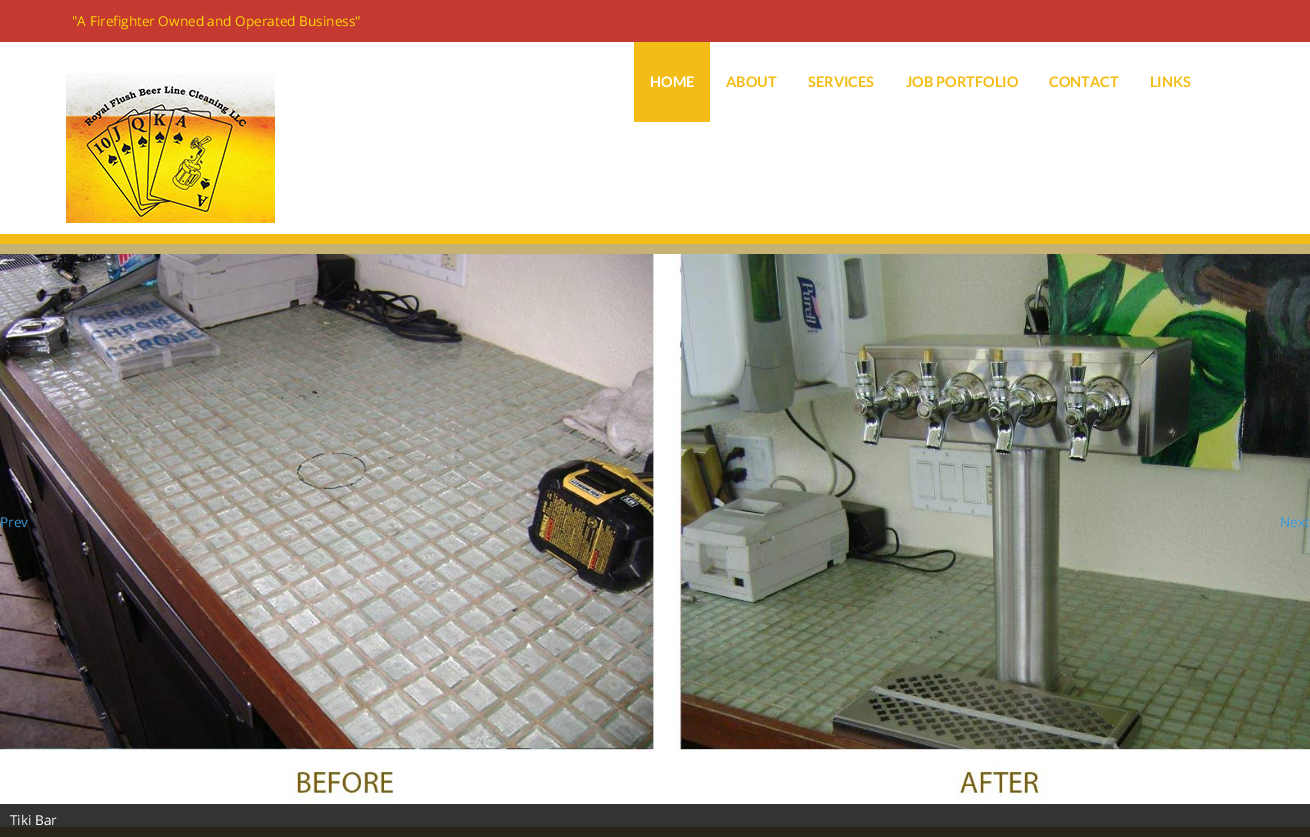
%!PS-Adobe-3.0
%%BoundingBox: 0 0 1310 837
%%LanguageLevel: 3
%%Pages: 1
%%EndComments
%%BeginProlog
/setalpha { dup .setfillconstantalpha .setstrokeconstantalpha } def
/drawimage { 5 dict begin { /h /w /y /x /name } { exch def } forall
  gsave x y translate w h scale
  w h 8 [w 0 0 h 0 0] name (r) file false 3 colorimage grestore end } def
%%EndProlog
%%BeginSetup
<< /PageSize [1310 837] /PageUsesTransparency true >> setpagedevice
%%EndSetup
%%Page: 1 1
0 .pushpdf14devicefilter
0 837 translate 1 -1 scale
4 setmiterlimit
1 setgray
0 0 1310 837 rectfill
0.769 0.227 0.192 setrgbcolor
0 0 1310 42 rectfill
(images/1.raw) 66 73 209 150 drawimage
0.957 0.737 0.086 setrgbcolor
634 42 76 80 rectfill
0.776 0.698 0.455 setrgbcolor
0 244 1310 593 rectfill
0.957 0.737 0.086 setrgbcolor
0 234 1310 10 rectfill
(images/2.raw) 0 254 1310 573 drawimage
0.8 setalpha
0 setgray
0 804 1310 33 rectfill
/OpenSans-Regular [13.6 0 0 -13.6 0 0] selectfont
1 setalpha
1 0.843 0 setrgbcolor
72 26 moveto ("A Firefighter Owned and Operated Business") show
/Lato-Bold [14.5 0 0 -14.5 0 0] selectfont
1 setgray
650 87 moveto (HOME) show
0.957 0.737 0.086 setrgbcolor
726 87 moveto (ABOUT) show
808 87 moveto (SERVICES) show
906 87 moveto (JOB PORTFOLIO) show
1049 87 moveto (CONTACT) show
1150 87 moveto (LINKS) show
/OpenSans-Regular [13.6 0 0 -13.6 0 0] selectfont
0.227 0.604 0.851 setrgbcolor
0 527 moveto (Prev) show
1280 527 moveto (Next) show
1 setgray
10 825 moveto (Tiki Bar) show
.poppdf14devicefilter showpage
%%EOF
